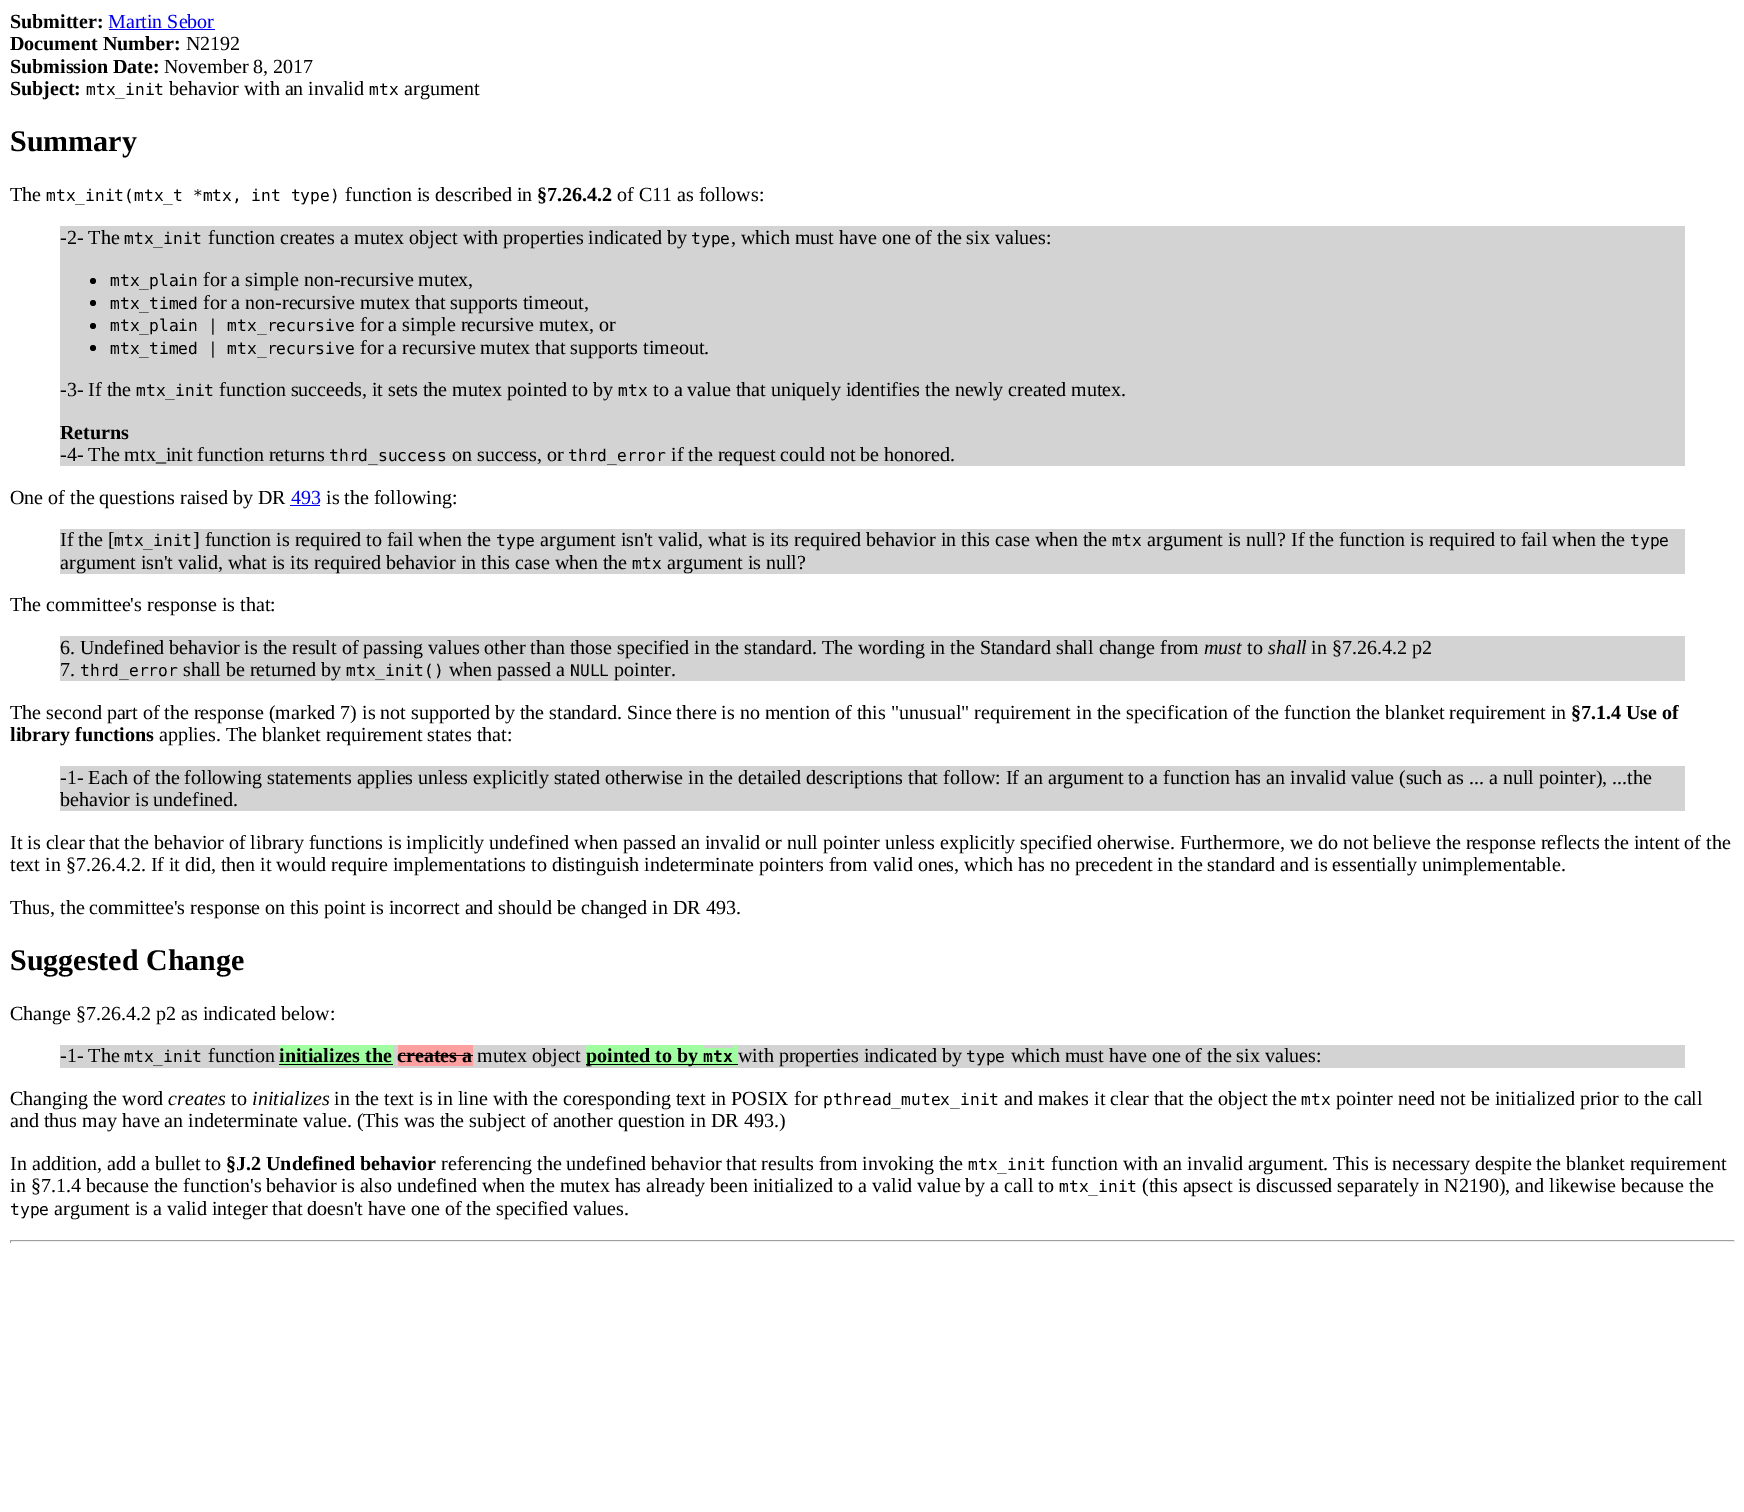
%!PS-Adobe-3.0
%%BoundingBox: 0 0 1744 1512
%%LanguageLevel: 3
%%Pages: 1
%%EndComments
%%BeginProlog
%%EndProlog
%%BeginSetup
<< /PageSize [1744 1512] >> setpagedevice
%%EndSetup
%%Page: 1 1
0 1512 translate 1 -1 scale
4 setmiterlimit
1 setgray
0 0 1744 1512 rectfill
0 0 0.933 setrgbcolor
109 29 106 1 rectfill
0.827 setgray
60 226 1625 240 rectfill
0 setgray
newpath 93 281 3 0 360 arc closepath fill
newpath 93 303 3 0 360 arc closepath fill
newpath 93 326 3 0 360 arc closepath fill
newpath 93 348 3 0 360 arc closepath fill
0 0 0.933 setrgbcolor
290 505 30 1 rectfill
0.827 setgray
60 529 1625 45 rectfill
60 636 1625 45 rectfill
60 766 1625 45 rectfill
60 1045 1625 23 rectfill
0.627 1 0.627 setrgbcolor
279 1045 114 21 rectfill
0 setgray
279 1064 114 1 rectfill
1 0.627 0.627 setrgbcolor
398 1045 75 21 rectfill
0 setgray
398 1055 75 1 rectfill
0.627 1 0.627 setrgbcolor
586 1045 118 21 rectfill
704 1048 29 18 rectfill
733 1045 5 21 rectfill
0 setgray
586 1064 152 1 rectfill
0.624 setgray
10 1240 1725 1 rectfill
0.933 setgray
1734 1240 1 3 rectfill
10 1241 1725 1 rectfill
0.624 setgray
10 1240 1 3 rectfill
/LiberationSerif-Bold [20 0 0 -20 0 0] selectfont
0 setgray
10 28 moveto (Submitter:) show
/LiberationSerif-Regular [20 0 0 -20 0 0] selectfont
0 0 0.933 setrgbcolor
108 28 moveto (Martin Sebor) show
/LiberationSerif-Bold [20 0 0 -20 0 0] selectfont
0 setgray
10 50 moveto (Document Number:) show
/LiberationSerif-Regular [20 0 0 -20 0 0] selectfont
186 50 moveto (N2192) show
/LiberationSerif-Bold [20 0 0 -20 0 0] selectfont
10 73 moveto (Submission Date:) show
/LiberationSerif-Regular [20 0 0 -20 0 0] selectfont
164 73 moveto (November 8, 2017) show
/LiberationSerif-Bold [20 0 0 -20 0 0] selectfont
10 95 moveto (Subject:) show
/DejaVuSansMono-Regular [16.25 0 0 -16.25 0 0] selectfont
86 95 moveto (mtx_init) show
/LiberationSerif-Regular [20 0 0 -20 0 0] selectfont
169 95 moveto (behavior with an invalid) show
/DejaVuSansMono-Regular [16.25 0 0 -16.25 0 0] selectfont
369 95 moveto (mtx) show
/LiberationSerif-Regular [20 0 0 -20 0 0] selectfont
404 95 moveto (argument) show
/LiberationSerif-Bold [30 0 0 -30 0 0] selectfont
10 151 moveto (Summary) show
/LiberationSerif-Regular [20 0 0 -20 0 0] selectfont
10 201 moveto (The) show
/DejaVuSansMono-Regular [16.25 0 0 -16.25 0 0] selectfont
46 201 moveto (mtx_init\(mtx_t *mtx, int type\)) show
/LiberationSerif-Regular [20 0 0 -20 0 0] selectfont
345 201 moveto (function is described in) show
/LiberationSerif-Bold [20 0 0 -20 0 0] selectfont
537 201 moveto (§7.26.4.2) show
/LiberationSerif-Regular [20 0 0 -20 0 0] selectfont
617 201 moveto (of C11 as follows:) show
60 244 moveto (-2- The) show
/DejaVuSansMono-Regular [16.25 0 0 -16.25 0 0] selectfont
124 244 moveto (mtx_init) show
/LiberationSerif-Regular [20 0 0 -20 0 0] selectfont
208 244 moveto (function creates a mutex object with properties indicated by) show
/DejaVuSansMono-Regular [16.25 0 0 -16.25 0 0] selectfont
691 244 moveto (type) show
/LiberationSerif-Regular [20 0 0 -20 0 0] selectfont
731 244 moveto (, which must have one of the six values:) show
/DejaVuSansMono-Regular [16.25 0 0 -16.25 0 0] selectfont
110 286 moveto (mtx_plain) show
/LiberationSerif-Regular [20 0 0 -20 0 0] selectfont
203 286 moveto (for a simple non-recursive mutex,) show
/DejaVuSansMono-Regular [16.25 0 0 -16.25 0 0] selectfont
110 309 moveto (mtx_timed) show
/LiberationSerif-Regular [20 0 0 -20 0 0] selectfont
203 309 moveto (for a non-recursive mutex that supports timeout,) show
/DejaVuSansMono-Regular [16.25 0 0 -16.25 0 0] selectfont
110 331 moveto (mtx_plain | mtx_recursive) show
/LiberationSerif-Regular [20 0 0 -20 0 0] selectfont
360 331 moveto (for a simple recursive mutex, or) show
/DejaVuSansMono-Regular [16.25 0 0 -16.25 0 0] selectfont
110 354 moveto (mtx_timed | mtx_recursive) show
/LiberationSerif-Regular [20 0 0 -20 0 0] selectfont
360 354 moveto (for a recursive mutex that supports timeout.) show
60 396 moveto (-3- If the) show
/DejaVuSansMono-Regular [16.25 0 0 -16.25 0 0] selectfont
136 396 moveto (mtx_init) show
/LiberationSerif-Regular [20 0 0 -20 0 0] selectfont
219 396 moveto (function succeeds, it sets the mutex pointed to by) show
/DejaVuSansMono-Regular [16.25 0 0 -16.25 0 0] selectfont
618 396 moveto (mtx) show
/LiberationSerif-Regular [20 0 0 -20 0 0] selectfont
653 396 moveto (to a value that uniquely identifies the newly created mutex.) show
/LiberationSerif-Bold [20 0 0 -20 0 0] selectfont
60 439 moveto (Returns) show
/LiberationSerif-Regular [20 0 0 -20 0 0] selectfont
60 461 moveto (-4- The mtx_init function returns) show
/DejaVuSansMono-Regular [16.25 0 0 -16.25 0 0] selectfont
329 461 moveto (thrd_success) show
/LiberationSerif-Regular [20 0 0 -20 0 0] selectfont
452 461 moveto (on success, or) show
/DejaVuSansMono-Regular [16.25 0 0 -16.25 0 0] selectfont
568 461 moveto (thrd_error) show
/LiberationSerif-Regular [20 0 0 -20 0 0] selectfont
671 461 moveto (if the request could not be honored.) show
10 504 moveto (One of the questions raised by DR) show
0 0 0.933 setrgbcolor
291 504 moveto (493) show
0 setgray
326 504 moveto (is the following:) show
60 546 moveto (If the [) show
/DejaVuSansMono-Regular [16.25 0 0 -16.25 0 0] selectfont
114 546 moveto (mtx_init) show
/LiberationSerif-Regular [20 0 0 -20 0 0] selectfont
193 546 moveto (] function is required to fail when the) show
/DejaVuSansMono-Regular [16.25 0 0 -16.25 0 0] selectfont
496 546 moveto (type) show
/LiberationSerif-Regular [20 0 0 -20 0 0] selectfont
540 546 moveto (argument isn't valid, what is its required behavior in this case when the) show
/DejaVuSansMono-Regular [16.25 0 0 -16.25 0 0] selectfont
1112 546 moveto (mtx) show
/LiberationSerif-Regular [20 0 0 -20 0 0] selectfont
1147 546 moveto (argument is null? If the function is required to fail when the) show
/DejaVuSansMono-Regular [16.25 0 0 -16.25 0 0] selectfont
1630 546 moveto (type) show
/LiberationSerif-Regular [20 0 0 -20 0 0] selectfont
60 569 moveto (argument isn't valid, what is its required behavior in this case when the) show
/DejaVuSansMono-Regular [16.25 0 0 -16.25 0 0] selectfont
632 569 moveto (mtx) show
/LiberationSerif-Regular [20 0 0 -20 0 0] selectfont
667 569 moveto (argument is null?) show
10 611 moveto (The committee's response is that:) show
60 654 moveto (6. Undefined behavior is the result of passing values other than those specified in the standard. The wording in the Standard shall change from) show
/LiberationSerif-Italic [20 0 0 -20 0 0] selectfont
1204 654 moveto (must) show
/LiberationSerif-Regular [20 0 0 -20 0 0] selectfont
1247 654 moveto (to) show
/LiberationSerif-Italic [20 0 0 -20 0 0] selectfont
1268 654 moveto (shall) show
/LiberationSerif-Regular [20 0 0 -20 0 0] selectfont
1311 654 moveto (in §7.26.4.2 p2) show
60 676 moveto (7.) show
/DejaVuSansMono-Regular [16.25 0 0 -16.25 0 0] selectfont
80 676 moveto (thrd_error) show
/LiberationSerif-Regular [20 0 0 -20 0 0] selectfont
183 676 moveto (shall be returned by) show
/DejaVuSansMono-Regular [16.25 0 0 -16.25 0 0] selectfont
346 676 moveto (mtx_init\(\)) show
/LiberationSerif-Regular [20 0 0 -20 0 0] selectfont
449 676 moveto (when passed a) show
/DejaVuSansMono-Regular [16.25 0 0 -16.25 0 0] selectfont
570 676 moveto (NULL) show
/LiberationSerif-Regular [20 0 0 -20 0 0] selectfont
614 676 moveto (pointer.) show
10 719 moveto (The second part of the response \(marked 7\) is not supported by the standard. Since there is no mention of this "unusual" requirement in the specification of the function the blanket requirement in) show
/LiberationSerif-Bold [20 0 0 -20 0 0] selectfont
1571 719 moveto (§7.1.4 Use of) show
10 741 moveto (library functions) show
/LiberationSerif-Regular [20 0 0 -20 0 0] selectfont
159 741 moveto (applies. The blanket requirement states that:) show
60 784 moveto (-1- Each of the following statements applies unless explicitly stated otherwise in the detailed descriptions that follow: If an argument to a function has an invalid value \(such as ... a null pointer\), ...the) show
60 806 moveto (behavior is undefined.) show
10 849 moveto (It is clear that the behavior of library functions is implicitly undefined when passed an invalid or null pointer unless explicitly specified oherwise. Furthermore, we do not believe the response reflects the intent of the) show
10 871 moveto (text in §7.26.4.2. If it did, then it would require implementations to distinguish indeterminate pointers from valid ones, which has no precedent in the standard and is essentially unimplementable.) show
10 914 moveto (Thus, the committee's response on this point is incorrect and should be changed in DR 493.) show
/LiberationSerif-Bold [30 0 0 -30 0 0] selectfont
10 970 moveto (Suggested Change) show
/LiberationSerif-Regular [20 0 0 -20 0 0] selectfont
10 1020 moveto (Change §7.26.4.2 p2 as indicated below:) show
60 1062 moveto (-1- The) show
/DejaVuSansMono-Regular [16.25 0 0 -16.25 0 0] selectfont
124 1062 moveto (mtx_init) show
/LiberationSerif-Regular [20 0 0 -20 0 0] selectfont
208 1062 moveto (function) show
/LiberationSerif-Bold [20 0 0 -20 0 0] selectfont
279 1062 moveto (initializes the) show
397 1062 moveto (creates a) show
/LiberationSerif-Regular [20 0 0 -20 0 0] selectfont
477 1062 moveto (mutex object) show
/LiberationSerif-Bold [20 0 0 -20 0 0] selectfont
586 1062 moveto (pointed to by) show
/DejaVuSansMono-Bold [16.25 0 0 -16.25 0 0] selectfont
703 1062 moveto (mtx) show
/LiberationSerif-Regular [20 0 0 -20 0 0] selectfont
738 1062 moveto (with properties indicated by) show
/DejaVuSansMono-Regular [16.25 0 0 -16.25 0 0] selectfont
966 1062 moveto (type) show
/LiberationSerif-Regular [20 0 0 -20 0 0] selectfont
1011 1062 moveto (which must have one of the six values:) show
10 1105 moveto (Changing the word) show
/LiberationSerif-Italic [20 0 0 -20 0 0] selectfont
168 1105 moveto (creates) show
/LiberationSerif-Regular [20 0 0 -20 0 0] selectfont
231 1105 moveto (to) show
/LiberationSerif-Italic [20 0 0 -20 0 0] selectfont
252 1105 moveto (initializes) show
/LiberationSerif-Regular [20 0 0 -20 0 0] selectfont
334 1105 moveto (in the text is in line with the coresponding text in POSIX for) show
/DejaVuSansMono-Regular [16.25 0 0 -16.25 0 0] selectfont
823 1105 moveto (pthread_mutex_init) show
/LiberationSerif-Regular [20 0 0 -20 0 0] selectfont
1004 1105 moveto (and makes it clear that the object the) show
/DejaVuSansMono-Regular [16.25 0 0 -16.25 0 0] selectfont
1301 1105 moveto (mtx) show
/LiberationSerif-Regular [20 0 0 -20 0 0] selectfont
1336 1105 moveto (pointer need not be initialized prior to the call) show
10 1127 moveto (and thus may have an indeterminate value. \(This was the subject of another question in DR 493.\)) show
10 1170 moveto (In addition, add a bullet to) show
/LiberationSerif-Bold [20 0 0 -20 0 0] selectfont
226 1170 moveto (§J.2 Undefined behavior) show
/LiberationSerif-Regular [20 0 0 -20 0 0] selectfont
441 1170 moveto (referencing the undefined behavior that results from invoking the) show
/DejaVuSansMono-Regular [16.25 0 0 -16.25 0 0] selectfont
968 1170 moveto (mtx_init) show
/LiberationSerif-Regular [20 0 0 -20 0 0] selectfont
1051 1170 moveto (function with an invalid argument. This is necessary despite the blanket requirement) show
10 1192 moveto (in §7.1.4 because the function's behavior is also undefined when the mutex has already been initialized to a valid value by a call to) show
/DejaVuSansMono-Regular [16.25 0 0 -16.25 0 0] selectfont
1059 1192 moveto (mtx_init) show
/LiberationSerif-Regular [20 0 0 -20 0 0] selectfont
1142 1192 moveto (\(this apsect is discussed separately in N2190\), and likewise because the) show
/DejaVuSansMono-Regular [16.25 0 0 -16.25 0 0] selectfont
10 1215 moveto (type) show
/LiberationSerif-Regular [20 0 0 -20 0 0] selectfont
54 1215 moveto (argument is a valid integer that doesn't have one of the specified values.) show
showpage
%%EOF
